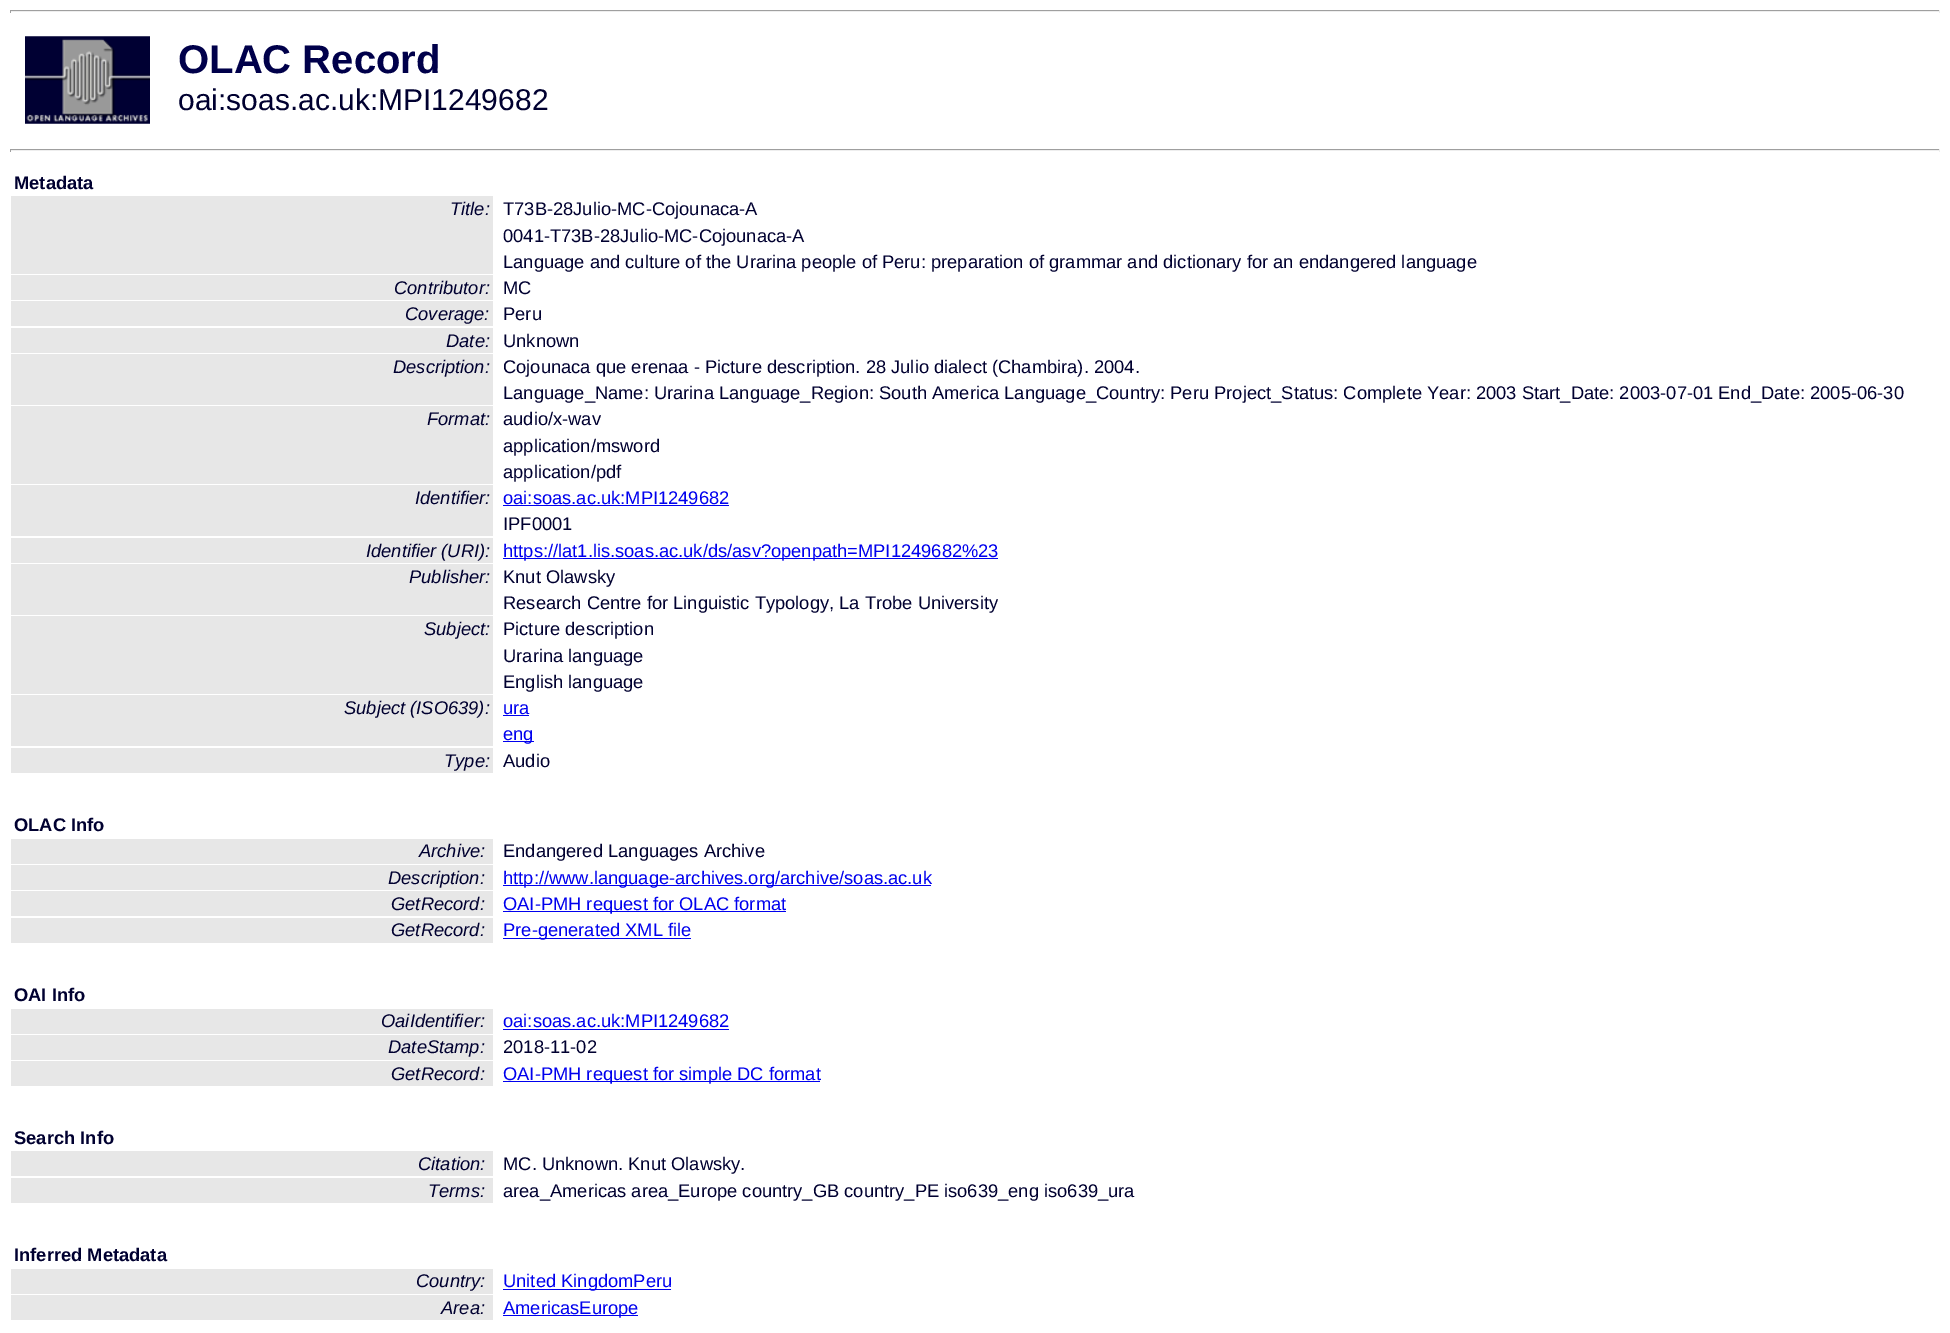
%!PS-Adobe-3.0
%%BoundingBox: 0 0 1950 1333
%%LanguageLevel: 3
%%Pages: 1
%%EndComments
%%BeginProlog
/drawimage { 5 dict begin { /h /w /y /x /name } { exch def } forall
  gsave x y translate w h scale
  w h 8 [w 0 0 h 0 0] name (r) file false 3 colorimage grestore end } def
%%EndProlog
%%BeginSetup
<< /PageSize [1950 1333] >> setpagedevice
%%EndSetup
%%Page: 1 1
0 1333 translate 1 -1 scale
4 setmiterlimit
1 setgray
0 0 1950 1333 rectfill
0.624 setgray
10 10 1930 1 rectfill
0.933 setgray
1939 10 1 3 rectfill
10 11 1930 1 rectfill
0.624 setgray
10 10 1 3 rectfill
(images/1.raw) 25 36 125 88 drawimage
10 149 1930 1 rectfill
0.933 setgray
1939 149 1 3 rectfill
10 150 1930 1 rectfill
0.624 setgray
10 149 1 3 rectfill
0.906 setgray
11 196 482 78 rectfill
11 275 482 25 rectfill
11 301 482 25 rectfill
11 328 482 25 rectfill
11 354 482 51 rectfill
11 406 482 78 rectfill
11 485 482 51 rectfill
0 0 0.933 setrgbcolor
503 505 226 1 rectfill
0.906 setgray
11 538 482 25 rectfill
0 0 0.933 setrgbcolor
503 558 495 1 rectfill
0.906 setgray
11 564 482 51 rectfill
11 616 482 78 rectfill
11 695 482 51 rectfill
0 0 0.933 setrgbcolor
503 715 26 1 rectfill
503 741 31 1 rectfill
0.906 setgray
11 748 482 25 rectfill
11 839 482 25 rectfill
11 865 482 25 rectfill
0 0 0.933 setrgbcolor
503 885 428 1 rectfill
0.906 setgray
11 891 482 25 rectfill
0 0 0.933 setrgbcolor
503 911 283 1 rectfill
0.906 setgray
11 918 482 25 rectfill
0 0 0.933 setrgbcolor
503 938 188 1 rectfill
0.906 setgray
11 1009 482 25 rectfill
0 0 0.933 setrgbcolor
503 1029 226 1 rectfill
0.906 setgray
11 1035 482 25 rectfill
11 1061 482 25 rectfill
0 0 0.933 setrgbcolor
503 1081 317 1 rectfill
0.906 setgray
11 1151 482 25 rectfill
11 1178 482 25 rectfill
11 1269 482 25 rectfill
0 0 0.933 setrgbcolor
503 1289 168 1 rectfill
0.906 setgray
11 1295 482 25 rectfill
0 0 0.933 setrgbcolor
503 1315 135 1 rectfill
/LiberationSans-Bold [40 0 0 -40 0 0] selectfont
0 0 0.29 setrgbcolor
178 73 moveto (OLAC Record) show
/LiberationSans-Regular [30 0 0 -30 0 0] selectfont
0 0 0.188 setrgbcolor
178 110 moveto (oai:soas.ac.uk:MPI1249682) show
/LiberationSans-Bold [18.33 0 0 -18.33 0 0] selectfont
14 189 moveto (Metadata) show
/LiberationSans-Italic [18.33 0 0 -18.33 0 0] selectfont
450 215 moveto (Title:) show
/LiberationSans-Regular [18.33 0 0 -18.33 0 0] selectfont
503 215 moveto (T73B-28Julio-MC-Cojounaca-A) show
503 242 moveto (0041-T73B-28Julio-MC-Cojounaca-A) show
503 268 moveto (Language and culture of the Urarina people of Peru: preparation of grammar and dictionary for an endangered language) show
/LiberationSans-Italic [18.33 0 0 -18.33 0 0] selectfont
394 294 moveto (Contributor:) show
/LiberationSans-Regular [18.33 0 0 -18.33 0 0] selectfont
503 294 moveto (MC) show
/LiberationSans-Italic [18.33 0 0 -18.33 0 0] selectfont
405 320 moveto (Coverage:) show
/LiberationSans-Regular [18.33 0 0 -18.33 0 0] selectfont
503 320 moveto (Peru) show
/LiberationSans-Italic [18.33 0 0 -18.33 0 0] selectfont
446 347 moveto (Date:) show
/LiberationSans-Regular [18.33 0 0 -18.33 0 0] selectfont
503 347 moveto (Unknown) show
/LiberationSans-Italic [18.33 0 0 -18.33 0 0] selectfont
393 373 moveto (Description:) show
/LiberationSans-Regular [18.33 0 0 -18.33 0 0] selectfont
503 373 moveto (Cojounaca que erenaa - Picture description. 28 Julio dialect \(Chambira\). 2004.) show
503 399 moveto (Language_Name: Urarina Language_Region: South America Language_Country: Peru Project_Status: Complete Year: 2003 Start_Date: 2003-07-01 End_Date: 2005-06-30) show
/LiberationSans-Italic [18.33 0 0 -18.33 0 0] selectfont
427 425 moveto (Format:) show
/LiberationSans-Regular [18.33 0 0 -18.33 0 0] selectfont
503 425 moveto (audio/x-wav) show
503 452 moveto (application/msword) show
503 478 moveto (application/pdf) show
/LiberationSans-Italic [18.33 0 0 -18.33 0 0] selectfont
415 504 moveto (Identifier:) show
/LiberationSans-Regular [18.33 0 0 -18.33 0 0] selectfont
0 0 0.933 setrgbcolor
503 504 moveto (oai:soas.ac.uk:MPI1249682) show
0 0 0.188 setrgbcolor
503 530 moveto (IPF0001) show
/LiberationSans-Italic [18.33 0 0 -18.33 0 0] selectfont
366 557 moveto (Identifier \(URI\):) show
/LiberationSans-Regular [18.33 0 0 -18.33 0 0] selectfont
0 0 0.933 setrgbcolor
503 557 moveto (https://lat1.lis.soas.ac.uk/ds/asv?openpath=MPI1249682%23) show
/LiberationSans-Italic [18.33 0 0 -18.33 0 0] selectfont
0 0 0.188 setrgbcolor
409 583 moveto (Publisher:) show
/LiberationSans-Regular [18.33 0 0 -18.33 0 0] selectfont
503 583 moveto (Knut Olawsky) show
503 609 moveto (Research Centre for Linguistic Typology, La Trobe University) show
/LiberationSans-Italic [18.33 0 0 -18.33 0 0] selectfont
424 635 moveto (Subject:) show
/LiberationSans-Regular [18.33 0 0 -18.33 0 0] selectfont
503 635 moveto (Picture description) show
503 662 moveto (Urarina language) show
503 688 moveto (English language) show
/LiberationSans-Italic [18.33 0 0 -18.33 0 0] selectfont
344 714 moveto (Subject \(ISO639\):) show
/LiberationSans-Regular [18.33 0 0 -18.33 0 0] selectfont
0 0 0.933 setrgbcolor
503 714 moveto (ura) show
503 740 moveto (eng) show
/LiberationSans-Italic [18.33 0 0 -18.33 0 0] selectfont
0 0 0.188 setrgbcolor
444 767 moveto (Type:) show
/LiberationSans-Regular [18.33 0 0 -18.33 0 0] selectfont
503 767 moveto (Audio) show
/LiberationSans-Bold [18.33 0 0 -18.33 0 0] selectfont
14 831 moveto (OLAC Info) show
/LiberationSans-Italic [18.33 0 0 -18.33 0 0] selectfont
419 857 moveto (Archive:) show
/LiberationSans-Regular [18.33 0 0 -18.33 0 0] selectfont
503 857 moveto (Endangered Languages Archive) show
/LiberationSans-Italic [18.33 0 0 -18.33 0 0] selectfont
388 884 moveto (Description:) show
/LiberationSans-Regular [18.33 0 0 -18.33 0 0] selectfont
0 0 0.933 setrgbcolor
503 884 moveto (http://www.language-archives.org/archive/soas.ac.uk) show
/LiberationSans-Italic [18.33 0 0 -18.33 0 0] selectfont
0 0 0.188 setrgbcolor
391 910 moveto (GetRecord:) show
/LiberationSans-Regular [18.33 0 0 -18.33 0 0] selectfont
0 0 0.933 setrgbcolor
503 910 moveto (OAI-PMH request for OLAC format) show
/LiberationSans-Italic [18.33 0 0 -18.33 0 0] selectfont
0 0 0.188 setrgbcolor
391 936 moveto (GetRecord:) show
/LiberationSans-Regular [18.33 0 0 -18.33 0 0] selectfont
0 0 0.933 setrgbcolor
503 936 moveto (Pre-generated XML file) show
/LiberationSans-Bold [18.33 0 0 -18.33 0 0] selectfont
0 0 0.188 setrgbcolor
14 1001 moveto (OAI Info) show
/LiberationSans-Italic [18.33 0 0 -18.33 0 0] selectfont
381 1027 moveto (OaiIdentifier:) show
/LiberationSans-Regular [18.33 0 0 -18.33 0 0] selectfont
0 0 0.933 setrgbcolor
503 1027 moveto (oai:soas.ac.uk:MPI1249682) show
/LiberationSans-Italic [18.33 0 0 -18.33 0 0] selectfont
0 0 0.188 setrgbcolor
388 1053 moveto (DateStamp:) show
/LiberationSans-Regular [18.33 0 0 -18.33 0 0] selectfont
503 1053 moveto (2018-11-02) show
/LiberationSans-Italic [18.33 0 0 -18.33 0 0] selectfont
391 1080 moveto (GetRecord:) show
/LiberationSans-Regular [18.33 0 0 -18.33 0 0] selectfont
0 0 0.933 setrgbcolor
503 1080 moveto (OAI-PMH request for simple DC format) show
/LiberationSans-Bold [18.33 0 0 -18.33 0 0] selectfont
0 0 0.188 setrgbcolor
14 1144 moveto (Search Info) show
/LiberationSans-Italic [18.33 0 0 -18.33 0 0] selectfont
418 1170 moveto (Citation:) show
/LiberationSans-Regular [18.33 0 0 -18.33 0 0] selectfont
503 1170 moveto (MC. Unknown. Knut Olawsky.) show
/LiberationSans-Italic [18.33 0 0 -18.33 0 0] selectfont
428 1197 moveto (Terms:) show
/LiberationSans-Regular [18.33 0 0 -18.33 0 0] selectfont
503 1197 moveto (area_Americas area_Europe country_GB country_PE iso639_eng iso639_ura) show
/LiberationSans-Bold [18.33 0 0 -18.33 0 0] selectfont
14 1261 moveto (Inferred Metadata) show
/LiberationSans-Italic [18.33 0 0 -18.33 0 0] selectfont
416 1287 moveto (Country:) show
/LiberationSans-Regular [18.33 0 0 -18.33 0 0] selectfont
0 0 0.933 setrgbcolor
503 1287 moveto (United KingdomPeru) show
/LiberationSans-Italic [18.33 0 0 -18.33 0 0] selectfont
0 0 0.188 setrgbcolor
441 1314 moveto (Area:) show
/LiberationSans-Regular [18.33 0 0 -18.33 0 0] selectfont
0 0 0.933 setrgbcolor
503 1314 moveto (AmericasEurope) show
showpage
%%EOF
